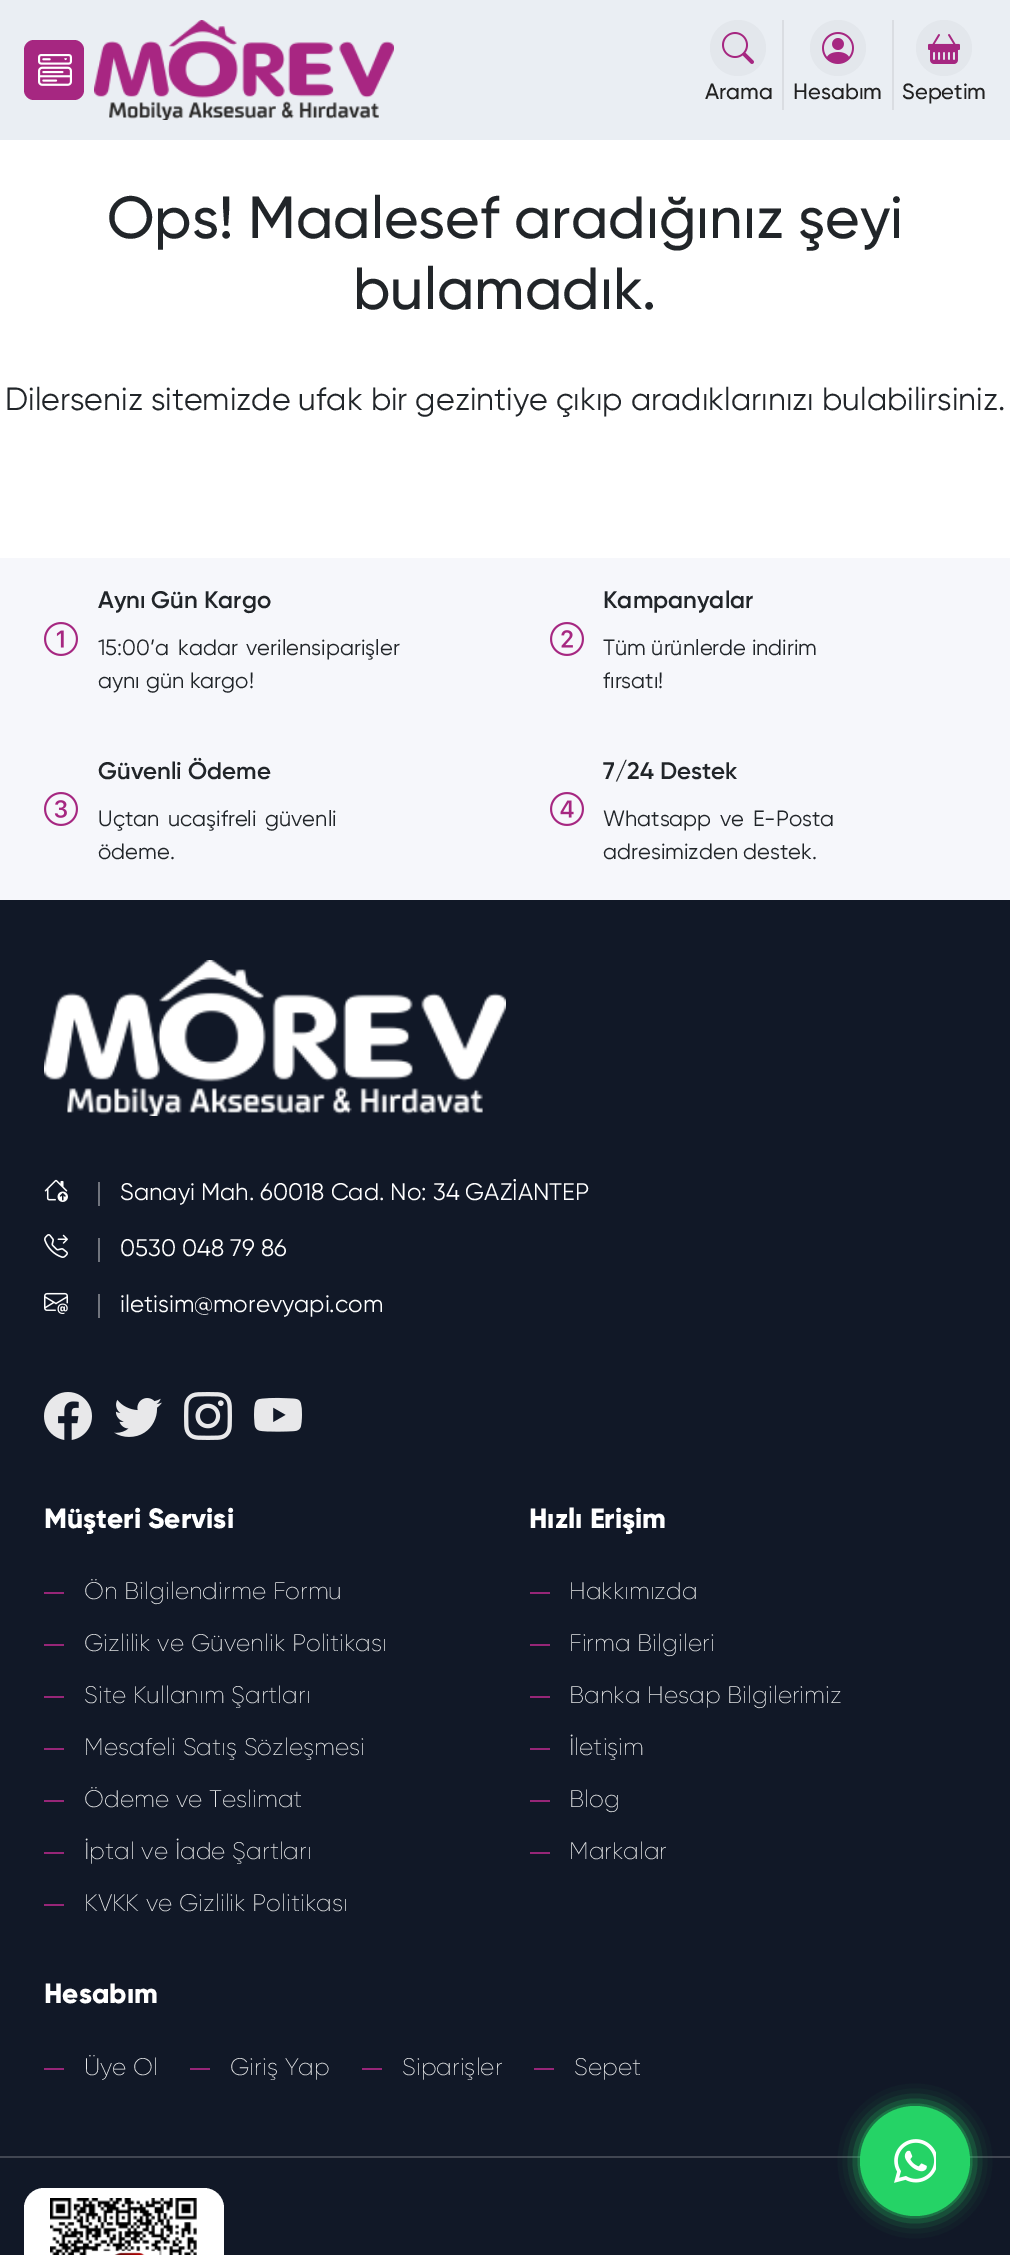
%!PS-Adobe-3.0
%%BoundingBox: 0 0 1010 2255
%%LanguageLevel: 3
%%Pages: 1
%%EndComments
%%BeginProlog
/setalpha { dup .setfillconstantalpha .setstrokeconstantalpha } def
/rrect { 5 dict begin { /r /h /w /y /x } { exch def } forall
  x r add y moveto x w add y 2 copy h add r arct x w add y h add x 1 index r arct
  x y h add x y r arct x y 2 copy exch w add exch r arct closepath end } def
/softshadow { 12 dict begin { /a /b /q /h /w /y /x } { exch def } forall gsave /was 0 def
  9 -2 -9 { dup b mul 4 div /e exch def 1 sub .425 mul 2.718 exch exp 1 add a .99 .min exch div /now exch def
    1 1 now sub 1 was sub div sub setalpha /was now def
    w h .min e 2 mul add 0 gt { x e sub y e sub w e 2 mul add h e 2 mul add
      q e add b .6 mul add w h .min 2 div e add .min 0 .max rrect fill } if } for grestore end } def
/drawimage { 5 dict begin { /h /w /y /x /name } { exch def } forall
  gsave x y translate w h scale
  w h 8 [w 0 0 h 0 0] name (r) file false 3 colorimage grestore end } def
%%EndProlog
%%BeginSetup
<< /PageSize [1010 2255] /PageUsesTransparency true >> setpagedevice
%%EndSetup
%%Page: 1 1
0 .pushpdf14devicefilter
0 2255 translate 1 -1 scale
4 setmiterlimit
1 setgray
0 0 1010 2255 rectfill
0.918 0.933 0.953 setrgbcolor
0 0 1010 140 rectfill
0.651 0.153 0.506 setrgbcolor
24 40 60 60 10 rrect fill
(images/1.raw) 38 54 34 32 drawimage
(images/2.raw) 94 20 300 100 drawimage
0.89 0.906 0.925 setrgbcolor
newpath 738 48 28 0 360 arc closepath fill
(images/3.raw) 722 32 32 32 drawimage
0.855 0.867 0.886 setrgbcolor
782 20 2 90 rectfill
0.89 0.906 0.925 setrgbcolor
newpath 838 48 28 0 360 arc closepath fill
(images/4.raw) 822 32 32 32 drawimage
0.855 0.867 0.886 setrgbcolor
892 20 2 90 rectfill
0.89 0.906 0.925 setrgbcolor
newpath 944 48 28 0 360 arc closepath fill
(images/5.raw) 928 34 32 30 drawimage
0.067 0.094 0.153 setrgbcolor
0 900 1010 1355 rectfill
0.965 0.969 0.984 setrgbcolor
0 558 1010 342 rectfill
(images/6.raw) 44 622 34 34 drawimage
(images/7.raw) 550 622 34 34 drawimage
(images/8.raw) 44 792 34 34 drawimage
(images/9.raw) 550 792 34 34 drawimage
(images/10.raw) 44 960 462 156 drawimage
0.439 0.455 0.49 setrgbcolor
98 1182 2 24 rectfill
(images/11.raw) 44 1179 24 23 drawimage
98 1238 2 24 rectfill
(images/12.raw) 44 1234 24 24 drawimage
98 1294 2 24 rectfill
(images/13.raw) 44 1292 24 22 drawimage
(images/14.raw) 44 1392 48 48 drawimage
(images/15.raw) 114 1398 48 39 drawimage
(images/16.raw) 184 1392 48 48 drawimage
(images/17.raw) 254 1397 48 35 drawimage
0.592 0.149 0.471 setrgbcolor
44 1592 20 2 rectfill
44 1644 20 2 rectfill
44 1696 20 2 rectfill
44 1748 20 2 rectfill
44 1800 20 2 rectfill
44 1852 20 2 rectfill
44 1904 20 2 rectfill
530 1592 20 2 rectfill
530 1644 20 2 rectfill
530 1696 20 2 rectfill
530 1748 20 2 rectfill
530 1800 20 2 rectfill
530 1852 20 2 rectfill
44 2068 20 2 rectfill
190 2068 20 2 rectfill
362 2068 20 2 rectfill
534 2068 20 2 rectfill
0.255 0.275 0.322 setrgbcolor
0 2156 1010 2 rectfill
1 setgray
24 2188 200 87 20 rrect fill
(images/18.raw) 50 2198 147 57 drawimage
0.145 0.827 0.4 setrgbcolor
860 2106 110 110 55 10 1 softshadow
newpath 915 2161 55 0 360 arc closepath fill
(images/19.raw) 894 2139 42 44 drawimage
/Gilroy-Medium [22 0 0 -22 0 0] selectfont
0.129 setgray
705 99 moveto (Arama) show
793 99 moveto (Hesabım) show
902 99 moveto (Sepetim) show
/Gilroy-Medium [59.2 0 0 -59.2 0 0] selectfont
0.129 0.145 0.161 setrgbcolor
107 238 moveto (Ops! Maalesef aradığınız şeyi) show
353 309 moveto (bulamadık.) show
/Gilroy-Regular [32 0 0 -32 0 0] selectfont
5 410 moveto (Dilerseniz sitemizde ufak bir gezintiye çıkıp aradıklarınızı bulabilirsiniz.) show
/Gilroy-SemiBold [24 0 0 -24 0 0] selectfont
98 608 moveto (Aynı Gün Kargo) show
/Gilroy-Regular [22 0 0 -22 0 0] selectfont
98 655 moveto 3 0 32 (15:00’a kadar verilensiparişler) widthshow
98 688 moveto (aynı gün kargo!) show
/Gilroy-SemiBold [24 0 0 -24 0 0] selectfont
603 608 moveto (Kampanyalar) show
/Gilroy-Regular [22 0 0 -22 0 0] selectfont
603 655 moveto (Tüm ürünlerde indirim) show
603 688 moveto (fırsatı!) show
/Gilroy-SemiBold [24 0 0 -24 0 0] selectfont
98 779 moveto (Güvenli Ödeme) show
/Gilroy-Regular [22 0 0 -22 0 0] selectfont
98 826 moveto 3 0 32 (Uçtan ucaşifreli güvenli) widthshow
98 859 moveto (ödeme.) show
/Gilroy-SemiBold [24 0 0 -24 0 0] selectfont
603 779 moveto (7/24 Destek) show
/Gilroy-Regular [22 0 0 -22 0 0] selectfont
603 826 moveto 3 0 32 (Whatsapp ve E-Posta) widthshow
603 859 moveto (adresimizden destek.) show
/Gilroy-Regular [24 0 0 -24 0 0] selectfont
1 setgray
120 1200 moveto (Sanayi Mah. 60018 Cad. No: 34 GAZİANTEP) show
120 1256 moveto (0530 048 79 86) show
120 1312 moveto (iletisim@morevyapi.com) show
/Gilroy-ExtraBold [28 0 0 -28 0 0] selectfont
44 1528 moveto (Müşteri Servisi) show
/Gilroy-ExtraLight [24 0 0 -24 0 0] selectfont
0.906 0.91 0.914 setrgbcolor
84 1599 moveto (Ön Bilgilendirme Formu) show
84 1651 moveto (Gizlilik ve Güvenlik Politikası) show
84 1703 moveto (Site Kullanım Şartları) show
84 1755 moveto (Mesafeli Satış Sözleşmesi) show
84 1807 moveto (Ödeme ve Teslimat) show
84 1859 moveto (İptal ve İade Şartları) show
84 1911 moveto (KVKK ve Gizlilik Politikası) show
/Gilroy-ExtraBold [28 0 0 -28 0 0] selectfont
1 setgray
529 1528 moveto (Hızlı Erişim) show
/Gilroy-ExtraLight [24 0 0 -24 0 0] selectfont
0.906 0.91 0.914 setrgbcolor
569 1599 moveto (Hakkımızda) show
569 1651 moveto (Firma Bilgileri) show
569 1703 moveto (Banka Hesap Bilgilerimiz) show
569 1755 moveto (İletişim) show
569 1807 moveto (Blog) show
569 1859 moveto (Markalar) show
/Gilroy-ExtraBold [28 0 0 -28 0 0] selectfont
1 setgray
44 2003 moveto (Hesabım) show
/Gilroy-ExtraLight [24 0 0 -24 0 0] selectfont
0.906 0.91 0.914 setrgbcolor
84 2075 moveto (Üye Ol) show
230 2075 moveto (Giriş Yap) show
402 2075 moveto (Siparişler) show
574 2075 moveto (Sepet) show
.poppdf14devicefilter showpage
%%EOF
